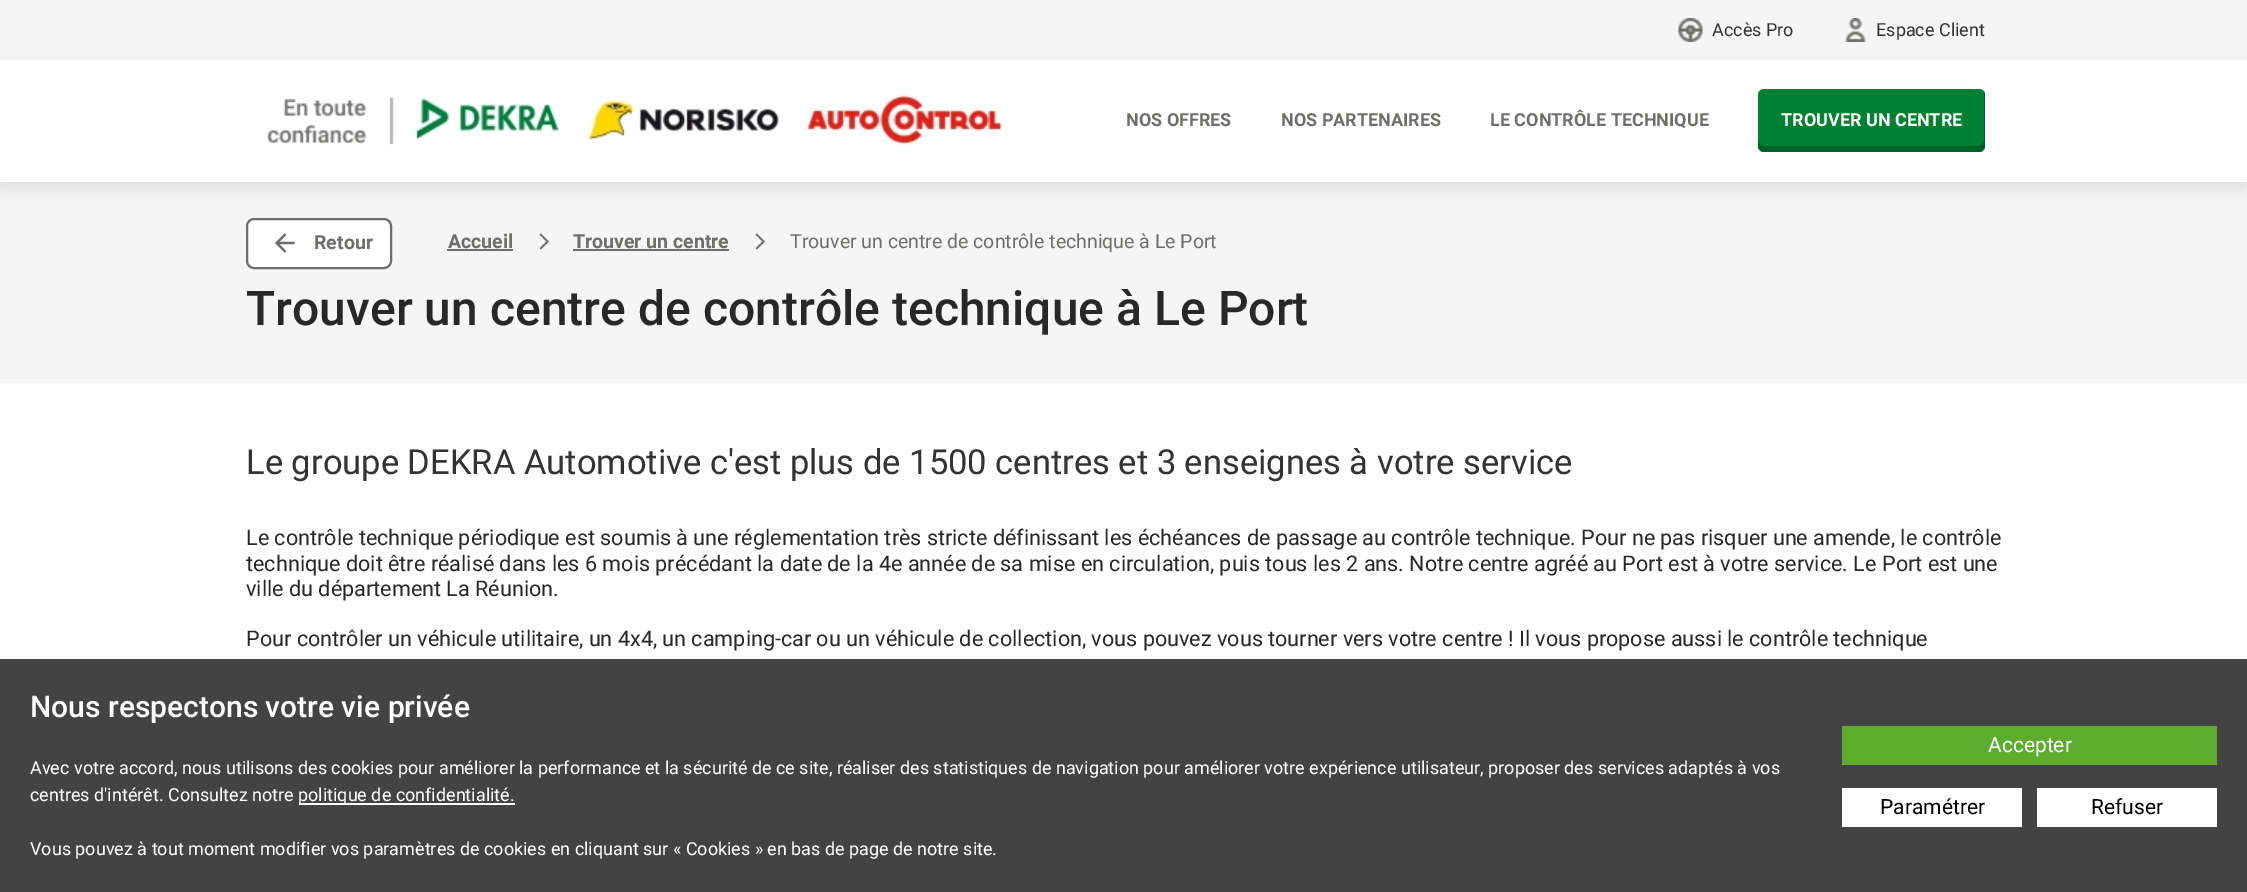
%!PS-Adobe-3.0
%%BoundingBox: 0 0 2247 892
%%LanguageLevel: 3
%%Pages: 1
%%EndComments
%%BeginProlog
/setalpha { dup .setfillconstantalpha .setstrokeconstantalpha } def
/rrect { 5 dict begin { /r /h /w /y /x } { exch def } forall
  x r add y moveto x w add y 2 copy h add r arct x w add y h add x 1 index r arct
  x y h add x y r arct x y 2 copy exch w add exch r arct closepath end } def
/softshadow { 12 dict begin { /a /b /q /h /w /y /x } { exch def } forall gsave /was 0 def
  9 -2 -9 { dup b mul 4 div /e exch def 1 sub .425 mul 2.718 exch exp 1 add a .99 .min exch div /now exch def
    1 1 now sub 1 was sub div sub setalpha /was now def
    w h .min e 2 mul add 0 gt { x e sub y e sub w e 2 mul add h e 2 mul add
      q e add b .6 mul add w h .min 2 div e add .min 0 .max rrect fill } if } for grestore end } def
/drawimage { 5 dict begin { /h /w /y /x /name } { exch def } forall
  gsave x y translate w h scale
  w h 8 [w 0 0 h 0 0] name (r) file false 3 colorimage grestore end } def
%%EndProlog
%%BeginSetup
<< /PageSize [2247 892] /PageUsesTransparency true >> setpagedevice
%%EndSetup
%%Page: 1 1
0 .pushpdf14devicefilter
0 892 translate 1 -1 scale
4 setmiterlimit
1 setgray
0 0 2247 892 rectfill
0.961 setgray
0 182 2247 201 rectfill
0.157 setgray
0 3 2247 182 0 9 0.15 softshadow
0.961 setgray
0 0 2247 60 rectfill
(images/1.raw) 1678 18 25 24 drawimage
(images/2.raw) 1844 18 23 24 drawimage
1 setgray
0 60 2247 122 rectfill
(images/3.raw) 266 94 736 52 drawimage
0 0.506 0.196 setrgbcolor
1758 89 227 63 6 rrect fill
0 0.376 0.145 setrgbcolor
newpath 1758 140 moveto 1758 146 lineto 1758 149 1761 152 1764 152 curveto 1979 152 lineto 1982 152 1985 149 1985 146 curveto 1985 95 lineto 1985 94 1985 93 1984 92 curveto 1984 140 lineto 1984 143 1982 146 1978 146 curveto 1764 146 lineto 1761 146 1758 143 1758 140 curveto closepath fill
1 setgray
247 219 144 49 7 rrect gsave fill grestore
0.435 0.431 0.42 setrgbcolor
2 setlinewidth
stroke
(images/4.raw) 275 233 20 20 drawimage
447 249 66 2 rectfill
(images/5.raw) 539 233 10 17 drawimage
573 249 156 2 rectfill
(images/5.raw) 755 233 10 17 drawimage
0.263 setgray
0 659 2247 233 rectfill
1 setgray
299 803 216 2 rectfill
0.365 0.675 0.18 setrgbcolor
1842 726 375 39 rectfill
1 setgray
1842 788 180 39 rectfill
2037 788 180 39 rectfill
/Roboto-Regular [18 0 0 -18 0 0] selectfont
0.2 setgray
1712 36 moveto (Accès Pro) show
1876 36 moveto (Espace Client) show
/Roboto-Bold [18 0 0 -18 0 0] selectfont
0.435 0.431 0.42 setrgbcolor
1126 126 moveto (NOS OFFRES) show
1281 126 moveto (NOS PARTENAIRES) show
1490 126 moveto (LE CONTRÔLE TECHNIQUE) show
1 setgray
1781 126 moveto (TROUVER UN CENTRE) show
/Roboto-Bold [19.5 0 0 -19.5 0 0] selectfont
0.435 0.431 0.42 setrgbcolor
314 249 moveto (Retour) show
448 248 moveto (Accueil) show
573 248 moveto (Trouver un centre) show
/Roboto-Regular [19.5 0 0 -19.5 0 0] selectfont
790 248 moveto (Trouver un centre de contrôle technique à Le Port) show
/Roboto-Medium [48 0 0 -48 0 0] selectfont
0.157 setgray
246 325 moveto (Trouver un centre de contrôle technique à Le Port) show
/Roboto-Regular [34.55 0 0 -34.55 0 0] selectfont
0.2 setgray
246 474 moveto (Le groupe DEKRA Automotive c'est plus de 1500 centres et 3 enseignes à votre service) show
/Roboto-Regular [21.6 0 0 -21.6 0 0] selectfont
0.157 setgray
246 545 moveto (Le contrôle technique périodique est soumis à une réglementation très stricte définissant les échéances de passage au contrôle technique. Pour ne pas risquer une amende, le contrôle) show
246 571 moveto (technique doit être réalisé dans les 6 mois précédant la date de la 4e année de sa mise en circulation, puis tous les 2 ans. Notre centre agréé au Port est à votre service. Le Port est une) show
246 596 moveto (ville du département La Réunion.) show
246 646 moveto (Pour contrôler un véhicule utilitaire, un 4x4, un camping-car ou un véhicule de collection, vous pouvez vous tourner vers votre centre ! Il vous propose aussi le contrôle technique) show
/Roboto-Medium [30 0 0 -30 0 0] selectfont
1 setgray
30 717 moveto (Nous respectons votre vie privée) show
/Roboto-Regular [18 0 0 -18 0 0] selectfont
30 774 moveto (Avec votre accord, nous utilisons des cookies pour améliorer la performance et la sécurité de ce site, réaliser des statistiques de navigation pour améliorer votre expérience utilisateur, proposer des services adaptés à vos) show
30 801 moveto (centres d'intérêt. Consultez notre) show
298 801 moveto (politique de confidentialité.) show
30 855 moveto (Vous pouvez à tout moment modifier vos paramètres de cookies en cliquant sur « Cookies » en bas de page de notre site.) show
/Roboto-Regular [21 0 0 -21 0 0] selectfont
1988 752 moveto (Accepter) show
0 setgray
1880 814 moveto (Paramétrer) show
2091 814 moveto (Refuser) show
.poppdf14devicefilter showpage
%%EOF
